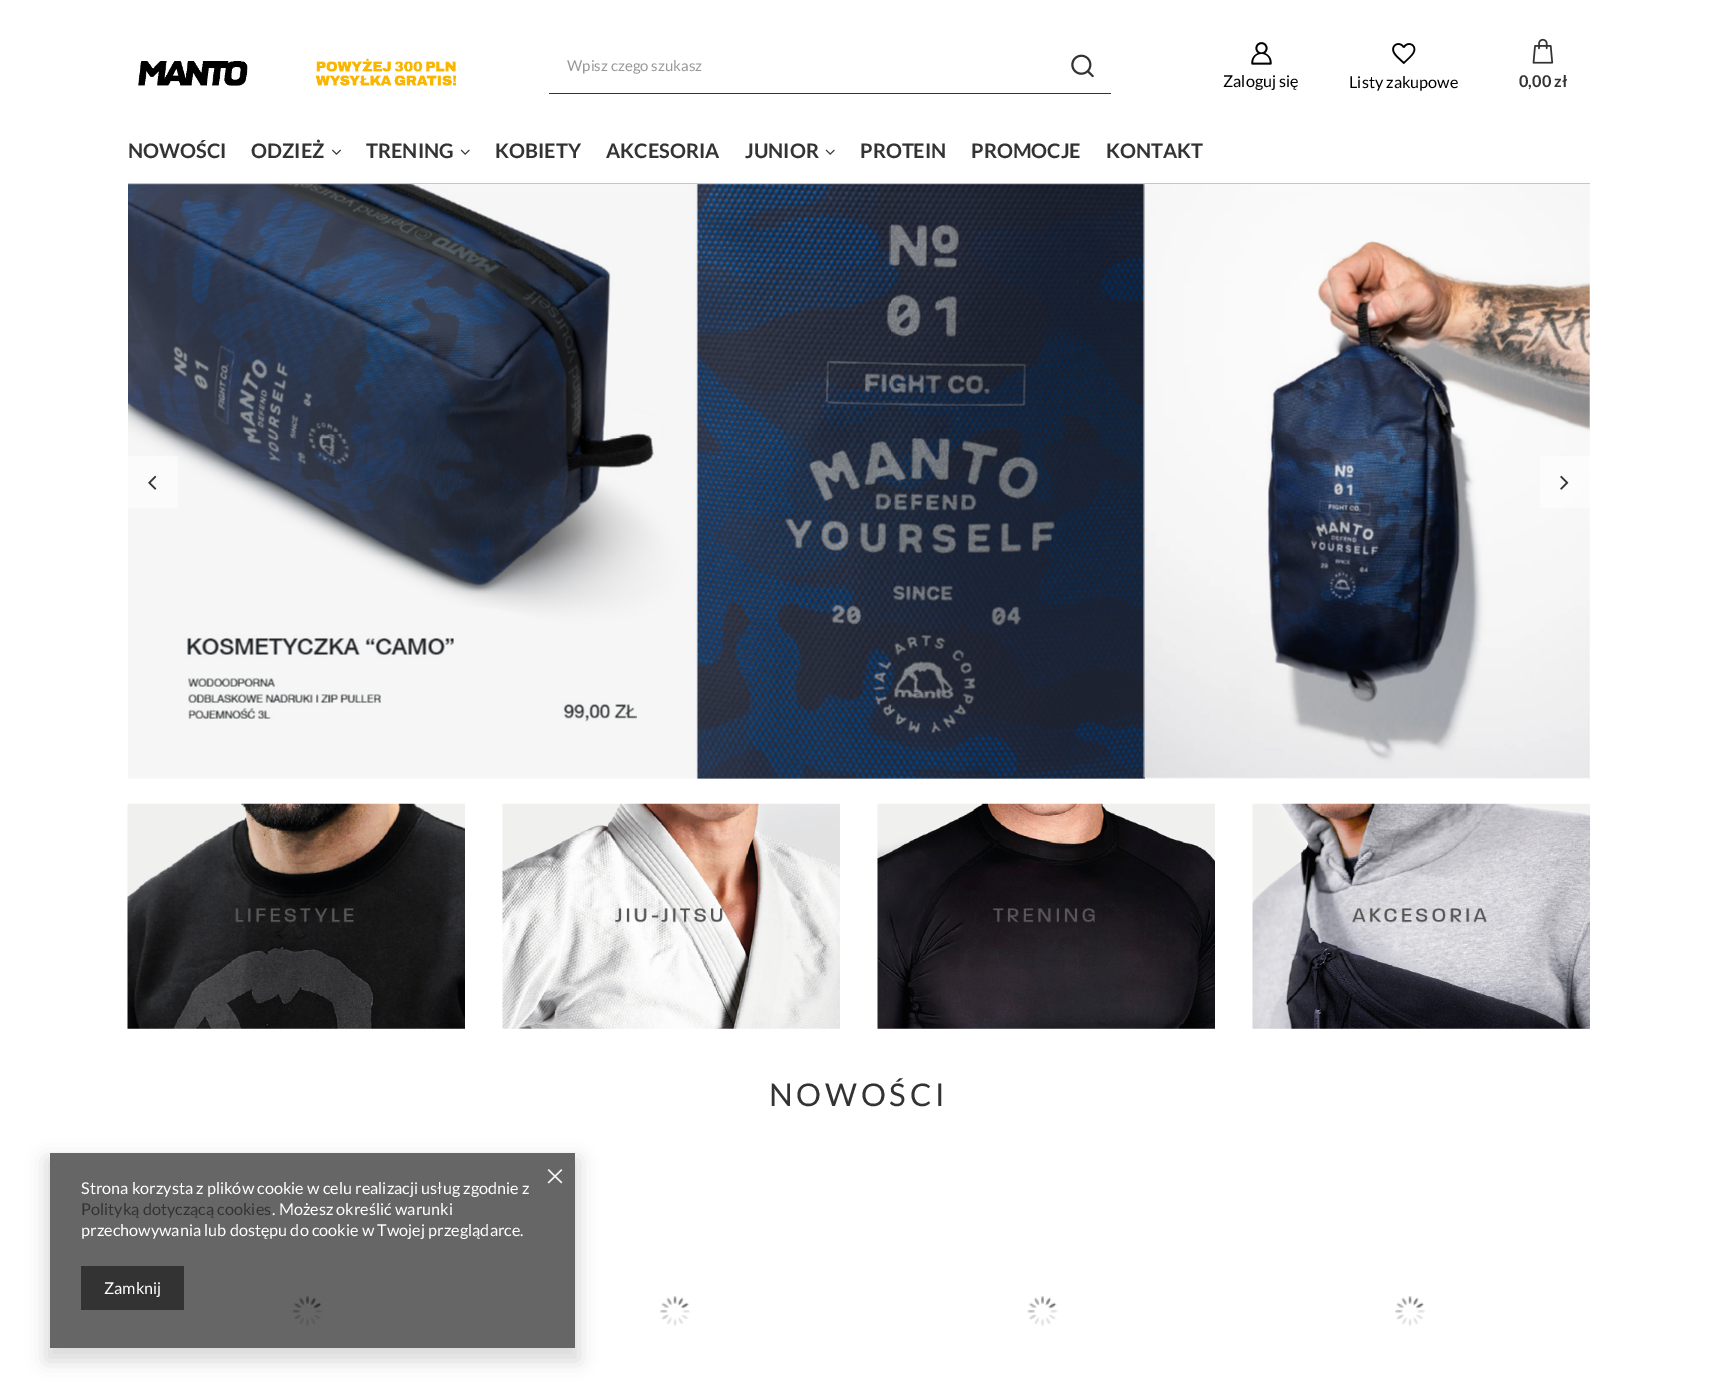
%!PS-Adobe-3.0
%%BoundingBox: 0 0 1717 1397
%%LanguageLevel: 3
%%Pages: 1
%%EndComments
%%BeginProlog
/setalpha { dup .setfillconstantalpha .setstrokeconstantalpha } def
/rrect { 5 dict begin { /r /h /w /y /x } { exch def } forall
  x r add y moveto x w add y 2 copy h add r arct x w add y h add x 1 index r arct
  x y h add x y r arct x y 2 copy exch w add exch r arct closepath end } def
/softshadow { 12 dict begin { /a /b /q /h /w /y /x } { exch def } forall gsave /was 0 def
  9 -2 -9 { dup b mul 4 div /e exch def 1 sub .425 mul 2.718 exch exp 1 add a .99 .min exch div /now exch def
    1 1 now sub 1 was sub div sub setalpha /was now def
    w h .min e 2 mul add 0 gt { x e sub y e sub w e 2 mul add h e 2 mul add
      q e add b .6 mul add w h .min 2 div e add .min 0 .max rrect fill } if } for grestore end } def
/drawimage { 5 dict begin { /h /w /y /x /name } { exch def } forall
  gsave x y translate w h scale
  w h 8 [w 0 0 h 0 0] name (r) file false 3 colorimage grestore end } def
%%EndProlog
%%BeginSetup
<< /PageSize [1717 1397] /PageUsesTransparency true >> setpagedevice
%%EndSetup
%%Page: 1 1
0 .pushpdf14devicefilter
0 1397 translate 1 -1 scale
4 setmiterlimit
1 setgray
0 0 1717 1397 rectfill
(images/1.raw) 138 58 318 28 drawimage
0.2 setgray
549 93 562 1 rectfill
(images/2.raw) 1071 54 23 24 drawimage
(images/3.raw) 1251 42 21 23 drawimage
(images/4.raw) 1392 43 24 22 drawimage
(images/5.raw) 1532 38 22 26 drawimage
0.769 0.78 0.784 setrgbcolor
128 183 1462 1 rectfill
(images/6.raw) 332 149 9 6 drawimage
(images/7.raw) 460 149 10 6 drawimage
(images/7.raw) 825 149 10 6 drawimage
(images/8.raw) 128 184 1462 595 drawimage
0.5 setalpha
1 setgray
128 456 50 52 rectfill
1 setalpha
(images/9.raw) 148 475 9 15 drawimage
0.5 setalpha
1540 456 50 52 rectfill
1 setalpha
(images/10.raw) 1560 475 9 15 drawimage
(images/11.raw) 127 803 338 226 drawimage
(images/12.raw) 502 803 338 226 drawimage
(images/13.raw) 877 803 338 226 drawimage
(images/14.raw) 1252 803 338 226 drawimage
(images/15.raw) 292 1296 31 30 drawimage
(images/16.raw) 660 1296 30 30 drawimage
(images/17.raw) 1027 1296 31 30 drawimage
(images/16.raw) 1395 1296 30 30 drawimage
gsave
newpath 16 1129 moveto 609 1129 lineto 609 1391 lineto 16 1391 lineto closepath 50 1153 moveto 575 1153 lineto 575 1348 lineto 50 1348 lineto closepath eoclip newpath
0 setgray
46 1159 533 202 0 9.5 0.15 softshadow
grestore
0.6 setalpha
0 setgray
50 1153 525 195 rectfill
1 setalpha
(images/18.raw) 547 1169 16 15 drawimage
0.2 setgray
81 1266 103 44 rectfill
/Lato-Regular [15 0 0 -15 0 0] selectfont
0.596 setgray
567 71 moveto (Wpisz czego szukasz) show
/Lato-Regular [16.25 0 0 -16.25 0 0] selectfont
0 setgray
1223 87 moveto (Zaloguj się) show
1349 88 moveto (Listy zakupowe) show
/Lato-Bold [16.25 0 0 -16.25 0 0] selectfont
0.2 setgray
1519 87 moveto (0,00 zł) show
/Lato-Bold [20 0 0 -20 0 0] selectfont
128 158 moveto (NOWOŚCI) show
251 158 moveto (ODZIEŻ) show
366 158 moveto (TRENING) show
495 158 moveto (KOBIETY) show
606 158 moveto (AKCESORIA) show
745 158 moveto (JUNIOR) show
860 158 moveto (PROTEIN) show
971 158 moveto (PROMOCJE) show
1106 158 moveto (KONTAKT) show
/Lato-Regular [31.25 0 0 -31.25 0 0] selectfont
769 1106 moveto 3.75 0 (NOWOŚCI) ashow
/Lato-Regular [16.25 0 0 -16.25 0 0] selectfont
1 setgray
81 1194 moveto (Strona korzysta z plików cookie w celu realizacji usług zgodnie z) show
0.2 setgray
81 1215 moveto (Polityką dotyczącą cookies) show
1 setgray
272 1215 moveto (. Możesz określić warunki) show
81 1236 moveto (przechowywania lub dostępu do cookie w Twojej przeglądarce.) show
104 1294 moveto (Zamknij) show
.poppdf14devicefilter showpage
%%EOF
